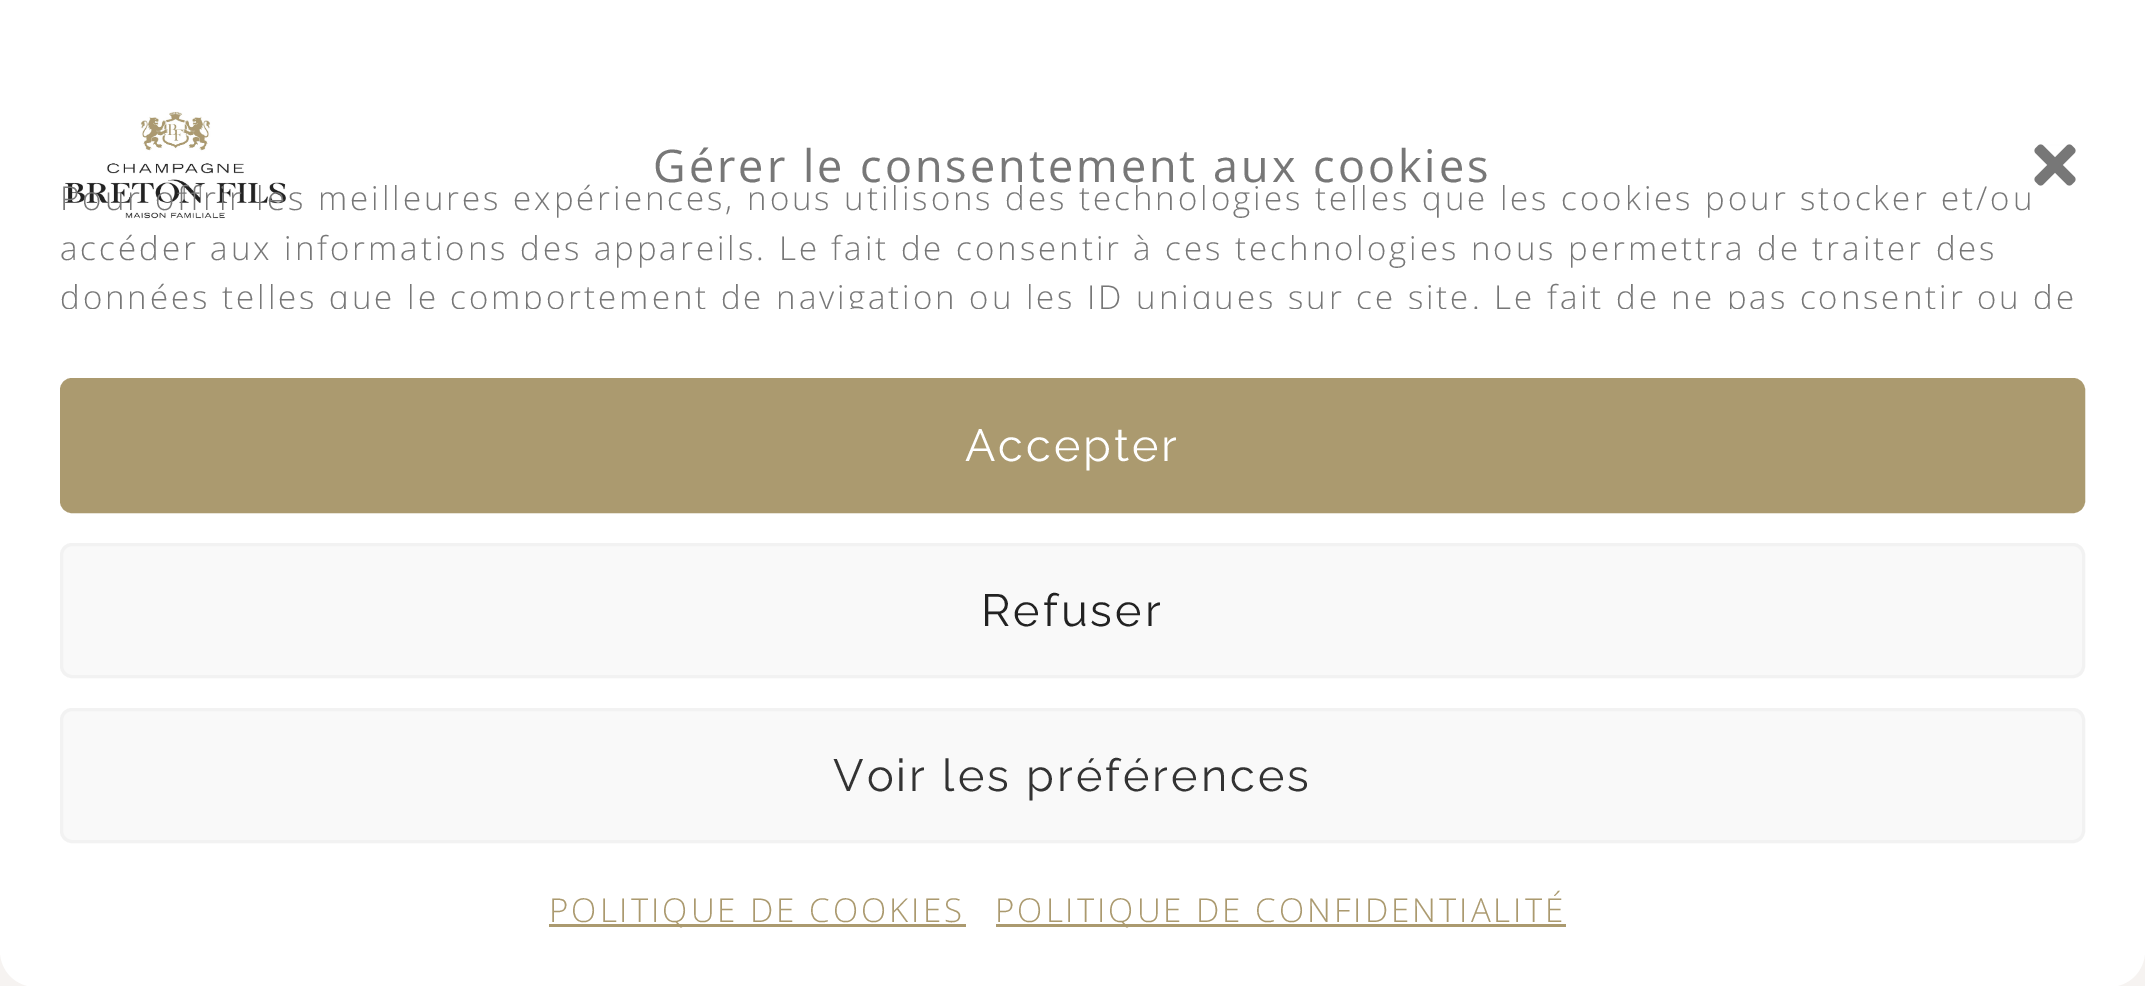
%!PS-Adobe-3.0
%%BoundingBox: 0 0 2145 986
%%LanguageLevel: 3
%%Pages: 1
%%EndComments
%%BeginProlog
/rrect { 5 dict begin { /r /h /w /y /x } { exch def } forall
  x r add y moveto x w add y 2 copy h add r arct x w add y h add x 1 index r arct
  x y h add x y r arct x y 2 copy exch w add exch r arct closepath end } def
/drawimage { 5 dict begin { /h /w /y /x /name } { exch def } forall
  gsave x y translate w h scale
  w h 8 [w 0 0 h 0 0] name (r) file false 3 colorimage grestore end } def
%%EndProlog
%%BeginSetup
<< /PageSize [2145 986] >> setpagedevice
%%EndSetup
%%Page: 1 1
0 986 translate 1 -1 scale
4 setmiterlimit
0.965 0.953 0.945 setrgbcolor
0 0 2145 986 rectfill
1 setgray
0 0 2145 96 rectfill
0 60 2145 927 36 rrect fill
(images/1.raw) 65 111 221 108 drawimage
(images/2.raw) 2034 144 42 42 drawimage
0.671 0.604 0.435 setrgbcolor
61.5 379.5 2022 132 10.5 rrect gsave fill grestore
3 setlinewidth
stroke
0.976 setgray
61.5 544.5 2022 132 10.5 rrect gsave fill grestore
0.949 setgray
stroke
0.976 setgray
61.5 709.5 2022 132 10.5 rrect gsave fill grestore
0.949 setgray
stroke
0.671 0.604 0.435 setrgbcolor
549 924 417 3 rectfill
996 924 570 3 rectfill
/OpenSans-Regular [45 0 0 -45 0 0] selectfont
0.467 setgray
653 182 moveto 3 0 (Gérer le consentement aux cookies) ashow
/OpenSans-Light [33 0 0 -33 0 0] selectfont
60 210 moveto 3 0 (Pour offrir les meilleures expériences, nous utilisons des technologies telles que les cookies pour stocker et/ou) ashow
60 260 moveto 3 0 (accéder aux informations des appareils. Le fait de consentir à ces technologies nous permettra de traiter des) ashow
gsave
60 174 2025 135 rectclip
60 309 moveto 3 0 (données telles que le comportement de navigation ou les ID uniques sur ce site. Le fait de ne pas consentir ou de) ashow
grestore
/Raleway-Thin [45 0 0 -45 0 0] selectfont
1 setgray
965 461 moveto 3 0 (Accepter) ashow
0.133 setgray
981 626 moveto 3 0 (Refuser) ashow
0.2 setgray
833 791 moveto 3 0 (Voir les préférences) ashow
/OpenSans-Light [33 0 0 -33 0 0] selectfont
0.671 0.604 0.435 setrgbcolor
549 922 moveto 3 0 (POLITIQUE DE COOKIES) ashow
995 922 moveto 3 0 (POLITIQUE DE CONFIDENTIALITÉ) ashow
showpage
%%EOF
